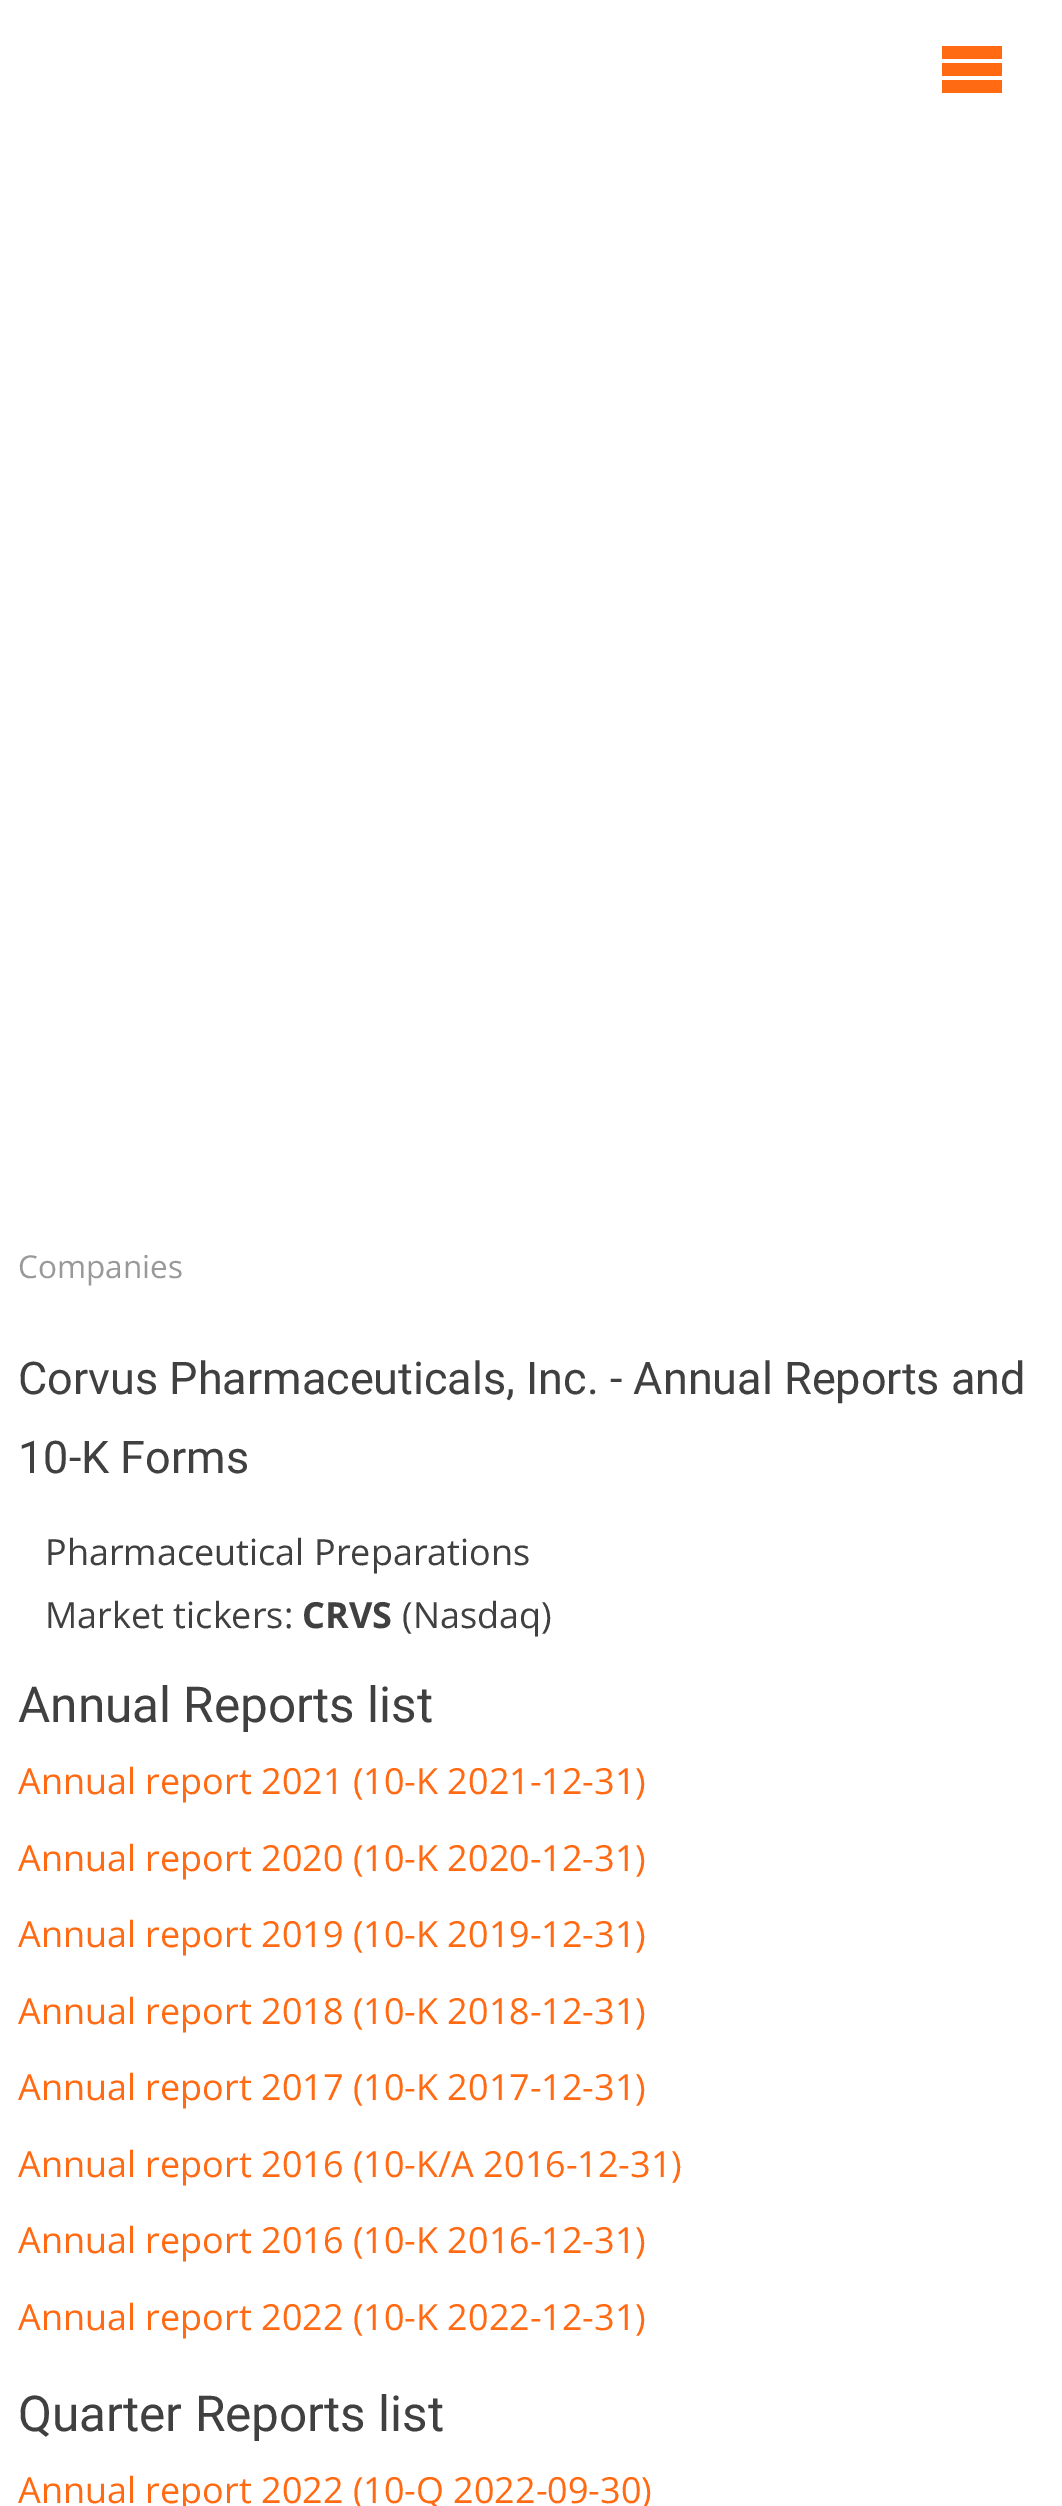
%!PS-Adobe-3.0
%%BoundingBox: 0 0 1062 2506
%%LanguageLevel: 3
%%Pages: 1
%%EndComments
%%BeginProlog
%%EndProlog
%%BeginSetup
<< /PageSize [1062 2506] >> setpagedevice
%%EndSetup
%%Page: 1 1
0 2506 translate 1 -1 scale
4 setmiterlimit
1 setgray
0 0 1062 2506 rectfill
1 0.416 0.075 setrgbcolor
newpath 942 46 moveto 1002 46 lineto 1002 59 lineto 942 59 lineto closepath 942 63 moveto 1002 63 lineto 1002 76 lineto 942 76 lineto closepath 942 80 moveto 1002 80 lineto 1002 93 lineto 942 93 lineto closepath fill
/OpenSans-Regular [31.5 0 0 -31.5 0 0] selectfont
0.6 setgray
18 1278 moveto (Companies) show
/Roboto-Regular [45 0 0 -45 0 0] selectfont
0.251 setgray
18 1394 moveto (Corvus Pharmaceuticals, Inc. - Annual Reports and) show
18 1473 moveto (10-K Forms) show
/OpenSans-Regular [36 0 0 -36 0 0] selectfont
45 1565 moveto (Pharmaceutical Preparations) show
45 1628 moveto (Market tickers:) show
/OpenSans-Bold [36 0 0 -36 0 0] selectfont
302 1628 moveto (CRVS) show
/OpenSans-Regular [36 0 0 -36 0 0] selectfont
402 1628 moveto (\(Nasdaq\)) show
/Roboto-Regular [49.5 0 0 -49.5 0 0] selectfont
18 1722 moveto (Annual Reports list) show
/OpenSans-Regular [36 0 0 -36 0 0] selectfont
1 0.416 0.075 setrgbcolor
18 1794 moveto (Annual report 2021 \(10-K 2021-12-31\)) show
18 1871 moveto (Annual report 2020 \(10-K 2020-12-31\)) show
18 1947 moveto (Annual report 2019 \(10-K 2019-12-31\)) show
18 2024 moveto (Annual report 2018 \(10-K 2018-12-31\)) show
18 2100 moveto (Annual report 2017 \(10-K 2017-12-31\)) show
18 2177 moveto (Annual report 2016 \(10-K/A 2016-12-31\)) show
18 2253 moveto (Annual report 2016 \(10-K 2016-12-31\)) show
18 2330 moveto (Annual report 2022 \(10-K 2022-12-31\)) show
/Roboto-Regular [49.5 0 0 -49.5 0 0] selectfont
0.251 setgray
18 2431 moveto (Quarter Reports list) show
/OpenSans-Regular [36 0 0 -36 0 0] selectfont
1 0.416 0.075 setrgbcolor
18 2503 moveto (Annual report 2022 \(10-Q 2022-09-30\)) show
showpage
%%EOF
